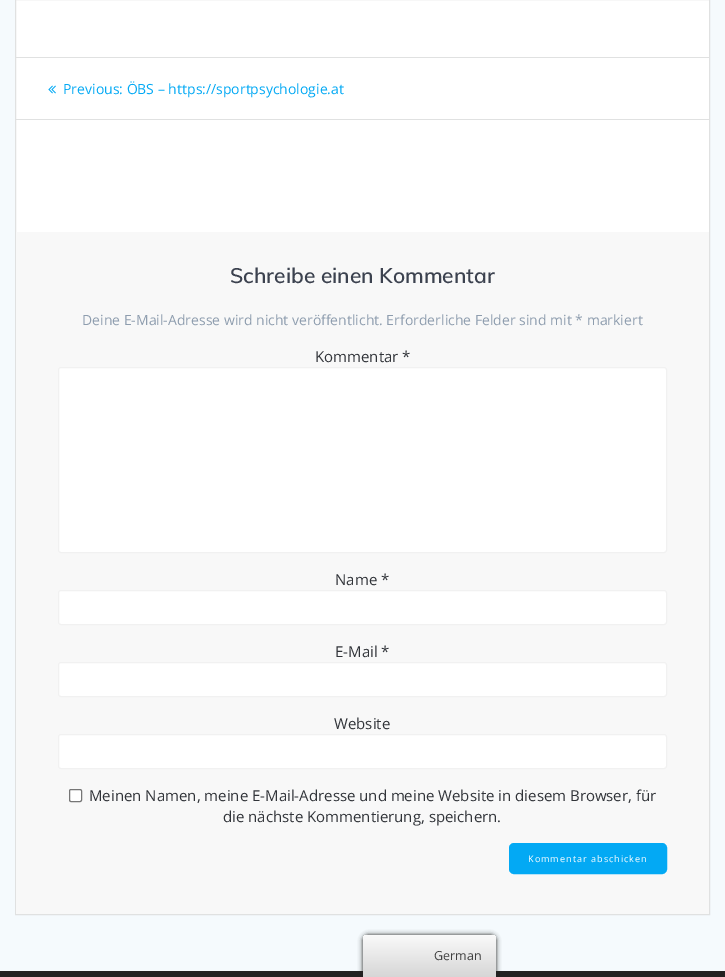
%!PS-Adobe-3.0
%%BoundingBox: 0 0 725 977
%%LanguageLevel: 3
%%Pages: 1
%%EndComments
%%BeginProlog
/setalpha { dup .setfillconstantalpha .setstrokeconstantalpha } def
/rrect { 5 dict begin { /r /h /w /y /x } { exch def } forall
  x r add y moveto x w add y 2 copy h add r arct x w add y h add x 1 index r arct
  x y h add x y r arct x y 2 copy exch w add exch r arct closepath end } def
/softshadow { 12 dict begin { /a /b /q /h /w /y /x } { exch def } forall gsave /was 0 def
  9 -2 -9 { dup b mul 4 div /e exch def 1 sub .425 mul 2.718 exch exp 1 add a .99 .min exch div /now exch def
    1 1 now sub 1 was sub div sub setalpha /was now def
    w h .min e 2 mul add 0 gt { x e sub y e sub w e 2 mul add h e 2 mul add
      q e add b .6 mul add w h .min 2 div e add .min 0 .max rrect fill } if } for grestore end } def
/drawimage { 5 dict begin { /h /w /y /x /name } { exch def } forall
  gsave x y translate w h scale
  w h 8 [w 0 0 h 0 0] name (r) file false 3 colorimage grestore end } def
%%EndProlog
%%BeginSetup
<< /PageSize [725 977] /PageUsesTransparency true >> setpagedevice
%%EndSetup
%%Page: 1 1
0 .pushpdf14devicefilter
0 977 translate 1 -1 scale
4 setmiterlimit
0.133 setgray
0 0 725 977 rectfill
0.961 0.98 0.992 setrgbcolor
0 0 725 971 rectfill
1 setgray
16 0 693 232 rectfill
0.878 0.882 0.882 setrgbcolor
15.5 -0.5 694 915 rectstroke
16 57 693 1 rectfill
16 119 693 1 rectfill
(images/1.raw) 48 85 8 9 drawimage
0.973 setgray
16 232 693 682 rectfill
1 setgray
58.5 367.5 608 185 2.5 rrect gsave fill grestore
0.945 setgray
stroke
1 setgray
58.5 590.5 608 34 2.5 rrect gsave fill grestore
0.945 setgray
stroke
1 setgray
58.5 662.5 608 34 2.5 rrect gsave fill grestore
0.945 setgray
stroke
1 setgray
58.5 734.5 608 34 2.5 rrect gsave fill grestore
0.945 setgray
stroke
1 setgray
69.5 789.5 12 12 1.5 rrect gsave fill grestore
0.463 setgray
stroke
0.012 0.663 0.957 setrgbcolor
510 844 156 29 4 rrect gsave fill grestore
2 setlinewidth
stroke
0.129 setgray
363 935 133 42 5 2.5 1 softshadow
gsave newpath 368 935 moveto 491 935 lineto 494 935 496 937 496 940 curveto 496 977 lineto 363 977 lineto 363 940 lineto 363 937 365 935 368 935 curveto closepath clip newpath
<< /ShadingType 2 /ColorSpace /DeviceRGB /Coords [430 977 430 935] /Extend [true true] /Function << /FunctionType 2 /Domain [0 1] /C0 [0.839 0.839 0.839] /C1 [0.98 0.98 0.98] /N 1 >> >> shfill grestore
/OpenSans-Regular [14 0 0 -14 0 0] selectfont
0.012 0.663 0.957 setrgbcolor
63 94 moveto (Previous: ÖBS – https://sportpsychologie.at) show
/Muli-SemiBold [21 0 0 -21 0 0] selectfont
0.235 0.259 0.31 setrgbcolor
230 283 moveto (Schreibe einen Kommentar) show
/OpenSans-Regular [14 0 0 -14 0 0] selectfont
0.557 0.616 0.682 setrgbcolor
82 325 moveto (Deine E-Mail-Adresse wird nicht veröffentlicht. Erforderliche Felder sind mit * markiert) show
/OpenSans-Regular [15 0 0 -15 0 0] selectfont
0.192 0.204 0.224 setrgbcolor
315 362 moveto (Kommentar *) show
335 585 moveto (Name *) show
335 657 moveto (E-Mail *) show
334 729 moveto (Website) show
89 801 moveto (Meinen Namen, meine E-Mail-Adresse und meine Website in diesem Browser, für) show
223 822 moveto (die nächste Kommentierung, speichern.) show
/OpenSans-Regular [9.1 0 0 -9.1 0 0] selectfont
1 setgray
528 862 moveto 1 0 (Kommentar abschicken) ashow
/OpenSans-Regular [12.5 0 0 -12.5 0 0] selectfont
0.251 setgray
434 960 moveto (German) show
.poppdf14devicefilter showpage
%%EOF
